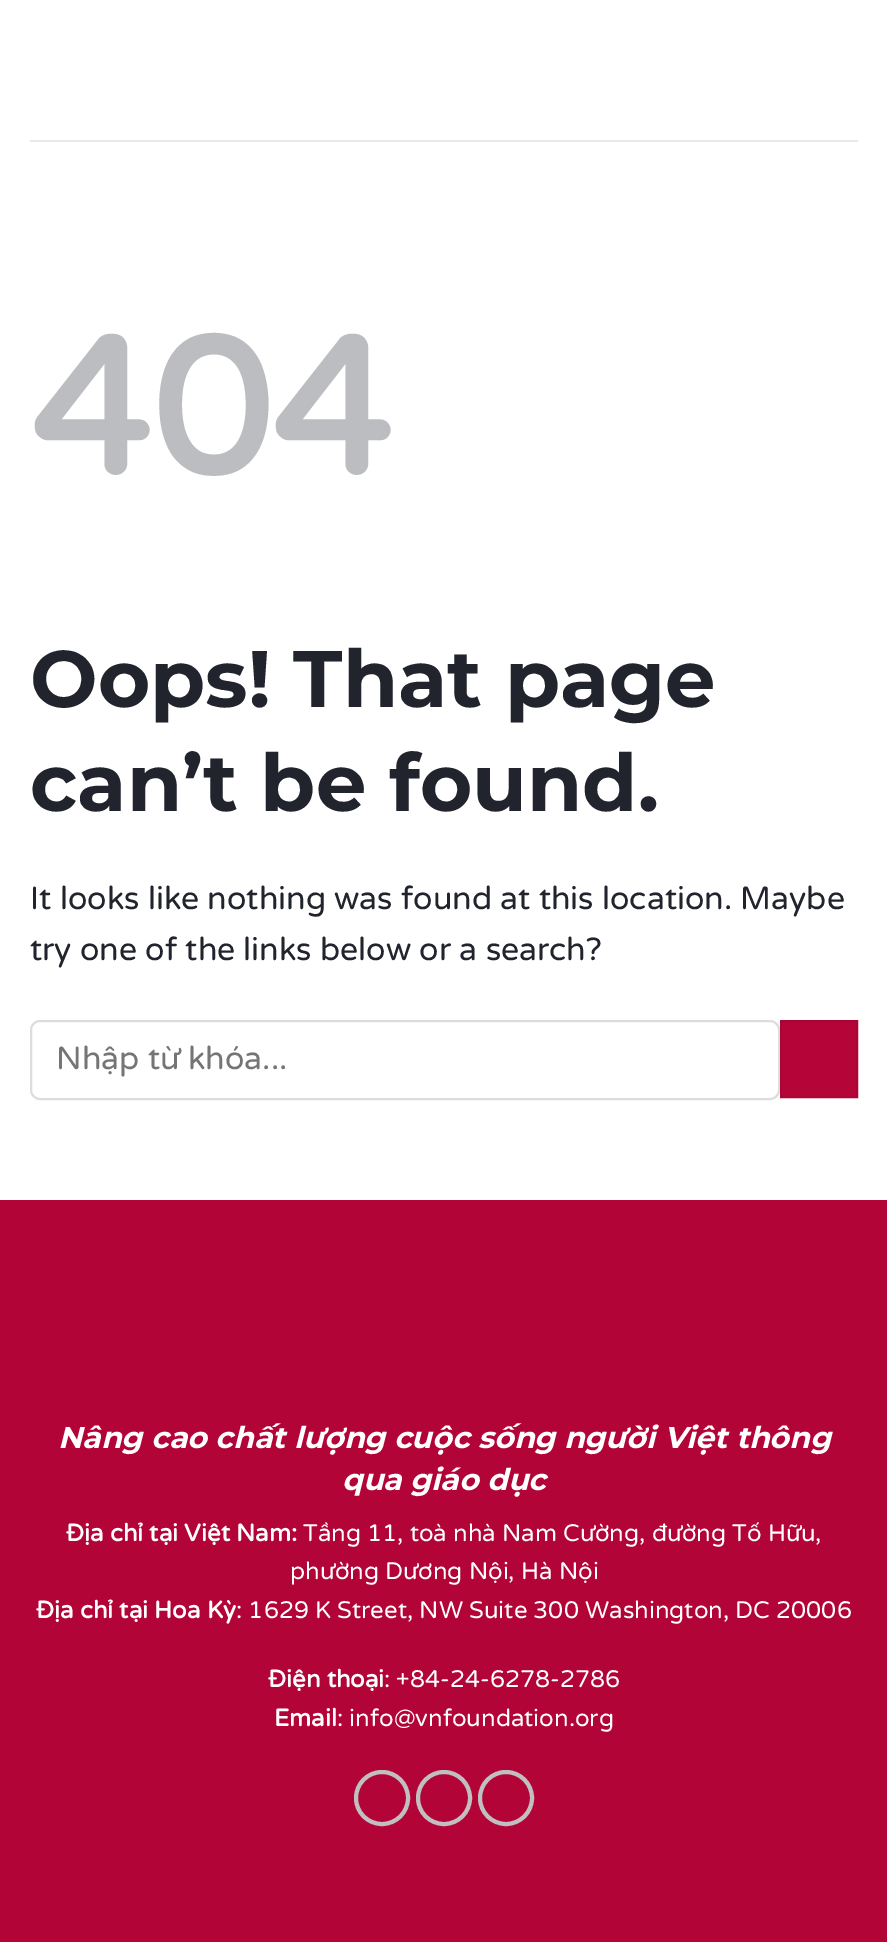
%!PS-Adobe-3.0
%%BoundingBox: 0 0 887 1942
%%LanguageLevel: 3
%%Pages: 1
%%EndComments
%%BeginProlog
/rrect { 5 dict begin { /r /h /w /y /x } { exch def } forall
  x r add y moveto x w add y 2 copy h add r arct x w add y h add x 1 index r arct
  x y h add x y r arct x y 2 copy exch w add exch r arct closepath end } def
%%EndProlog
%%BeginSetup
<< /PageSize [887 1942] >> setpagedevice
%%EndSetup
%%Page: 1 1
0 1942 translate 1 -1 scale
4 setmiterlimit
1 setgray
0 0 887 1942 rectfill
0.914 0.914 0.918 setrgbcolor
30 140 828 2 rectfill
0.867 setgray
2 setlinewidth
31 1021 748 78 9 rrect stroke
0.706 0.016 0.22 setrgbcolor
newpath 781 1021 moveto 857 1021 lineto 857 1097 lineto 781 1097 lineto closepath gsave fill grestore
0.671 0.016 0.208 setrgbcolor
stroke
0.702 0.016 0.22 setrgbcolor
0 1200 887 742 rectfill
0.753 setgray
4 setlinewidth
newpath 382 1798 26 0 360 arc closepath stroke
newpath 444 1798 26 0 360 arc closepath stroke
newpath 506 1798 26 0 360 arc closepath stroke
/VarelaRound-Bold [192 0 0 -192 0 0] selectfont
0.737 0.741 0.753 setrgbcolor
30 474 moveto (404) show
/Montserrat-Bold [80 0 0 -80 0 0] selectfont
0.129 0.141 0.173 setrgbcolor
30 707 moveto (Oops! That page) show
30 811 moveto (can’t be found.) show
/VarelaRound-Regular [32 0 0 -32 0 0] selectfont
30 909 moveto (It looks like nothing was found at this location. Maybe) show
30 960 moveto (try one of the links below or a search?) show
0.459 setgray
56 1069 moveto (Nhập từ khóa...) show
/Montserrat-BoldItalic [30 0 0 -30 0 0] selectfont
1 setgray
58 1448 moveto (Nâng cao chất lượng cuộc sống người Việt thông) show
342 1490 moveto (qua giáo dục) show
/VarelaRound-Bold [24 0 0 -24 0 0] selectfont
66 1541 moveto (Địa chỉ tại Việt Nam:) show
/VarelaRound-Regular [24 0 0 -24 0 0] selectfont
303 1541 moveto (Tầng 11, toà nhà Nam Cường, đường Tố Hữu,) show
290 1579 moveto (phường Dương Nội, Hà Nội) show
/VarelaRound-Bold [24 0 0 -24 0 0] selectfont
36 1618 moveto (Địa chỉ tại Hoa Kỳ) show
/VarelaRound-Regular [24 0 0 -24 0 0] selectfont
236 1618 moveto (: 1629 K Street, NW Suite 300 Washington, DC 20006) show
/VarelaRound-Bold [24 0 0 -24 0 0] selectfont
268 1687 moveto (Điện thoại) show
/VarelaRound-Regular [24 0 0 -24 0 0] selectfont
384 1687 moveto (: +84-24-6278-2786) show
/VarelaRound-Bold [24 0 0 -24 0 0] selectfont
274 1726 moveto (Email) show
/VarelaRound-Regular [24 0 0 -24 0 0] selectfont
337 1726 moveto (: info@vnfoundation.org) show
showpage
%%EOF
